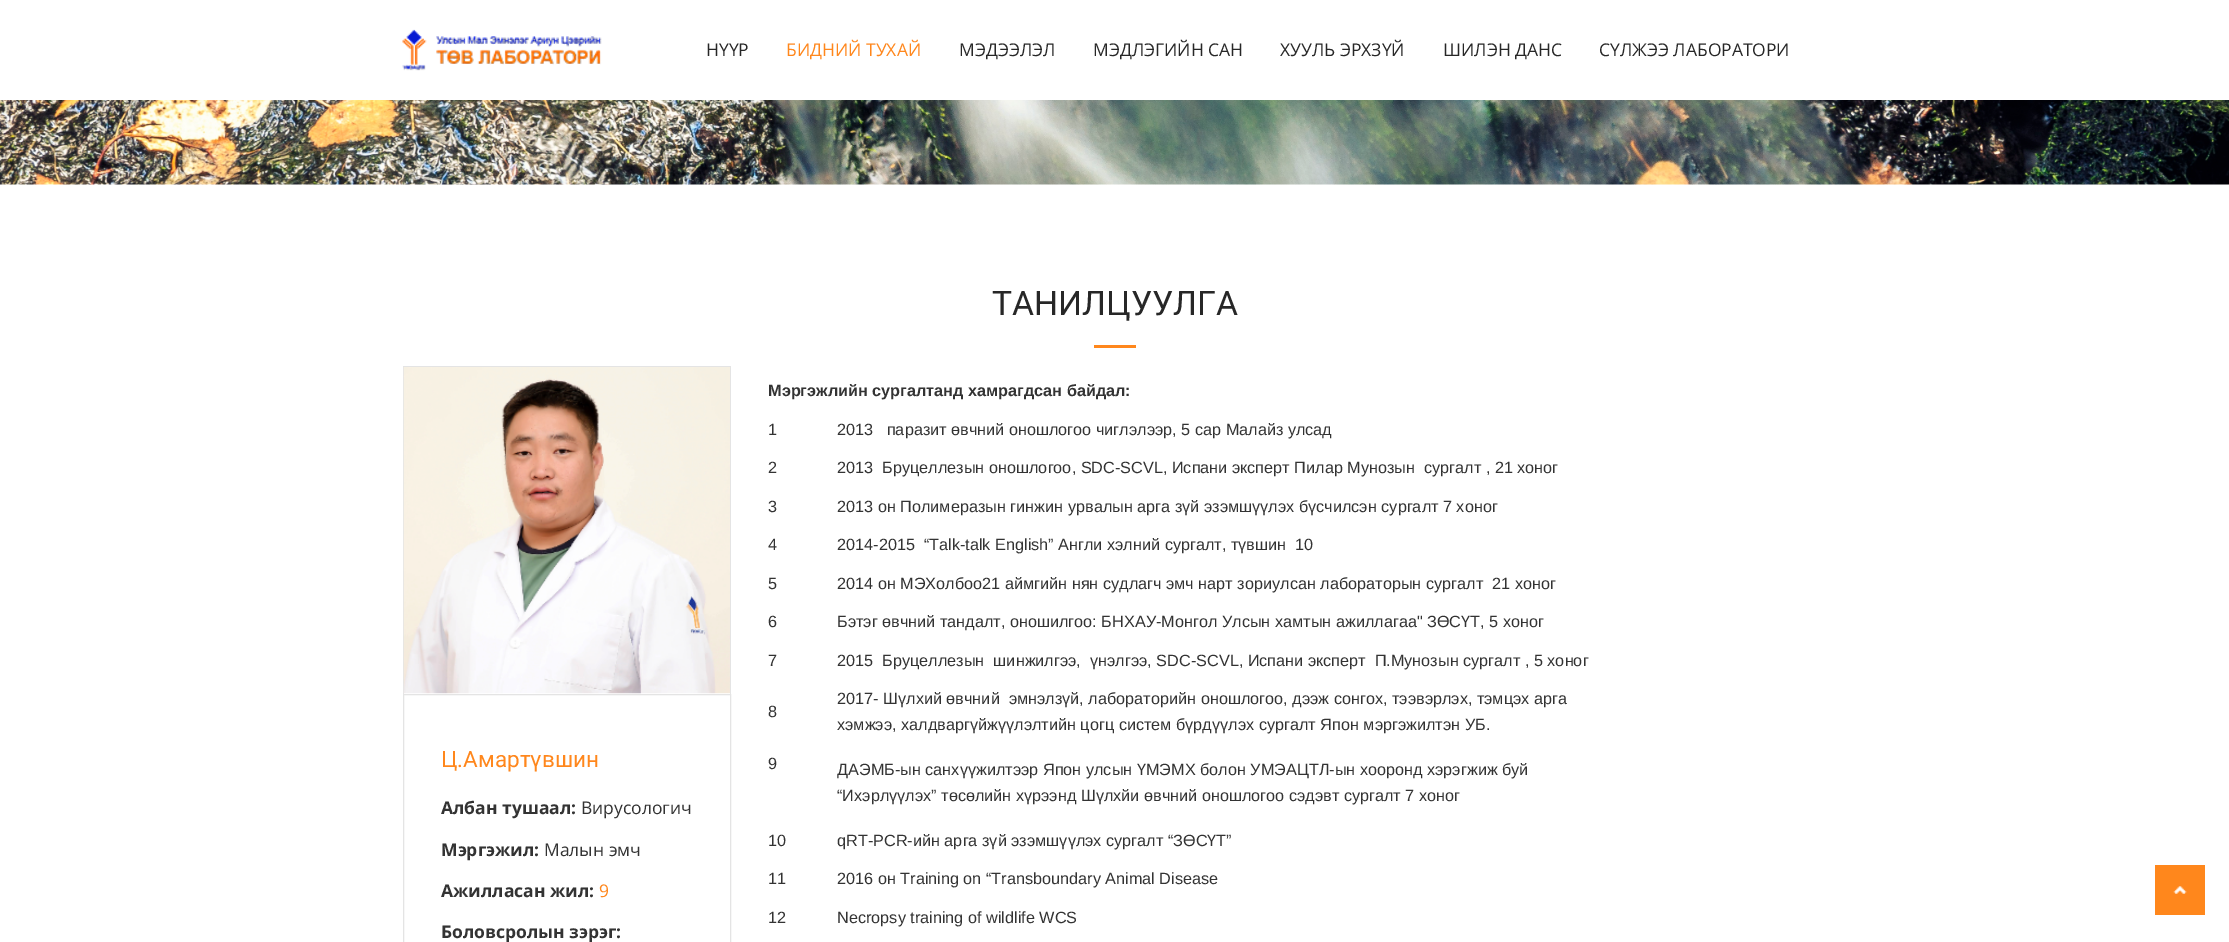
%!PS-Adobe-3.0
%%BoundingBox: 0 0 2229 942
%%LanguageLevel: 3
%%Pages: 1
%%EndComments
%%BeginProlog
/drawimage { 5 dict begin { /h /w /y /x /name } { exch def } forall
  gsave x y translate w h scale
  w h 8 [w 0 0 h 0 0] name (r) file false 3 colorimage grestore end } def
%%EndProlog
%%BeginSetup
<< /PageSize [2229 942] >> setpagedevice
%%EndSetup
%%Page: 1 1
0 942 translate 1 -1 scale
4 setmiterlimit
1 setgray
0 0 2229 942 rectfill
(images/1.raw) 402 29 200 42 drawimage
(images/2.raw) 0 100 2229 85 drawimage
1 0.529 0.11 setrgbcolor
1094 345 42 3 rectfill
0.894 setgray
403 366 328 1 rectfill
730 366 1 328 rectfill
403 366 1 328 rectfill
(images/3.raw) 403 367 327 327 drawimage
403.5 694.5 327 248 rectstroke
1 0.529 0.11 setrgbcolor
2155 865 50 50 rectfill
(images/4.raw) 2173 886 14 8 drawimage
/OpenSans-Regular [17.5 0 0 -17.5 0 0] selectfont
0.153 setgray
706 56 moveto (НҮҮР) show
1 0.529 0.11 setrgbcolor
786 56 moveto (БИДНИЙ ТУХАЙ) show
0.153 setgray
959 56 moveto (МЭДЭЭЛЭЛ) show
1093 56 moveto (МЭДЛЭГИЙН САН) show
1280 56 moveto (ХУУЛЬ ЭРХЗҮЙ) show
1443 56 moveto (ШИЛЭН ДАНС) show
1599 56 moveto (СҮЛЖЭЭ ЛАБОРАТОРИ) show
/Roboto-Regular [33.75 0 0 -33.75 0 0] selectfont
992 315 moveto (ТАНИЛЦУУЛГА) show
/Roboto-Regular [22.5 0 0 -22.5 0 0] selectfont
1 0.529 0.11 setrgbcolor
441 767 moveto (Ц.Амартүвшин) show
/OpenSans-Bold [17.5 0 0 -17.5 0 0] selectfont
0.2 setgray
441 814 moveto (Албан тушаал:) show
/OpenSans-Regular [17.5 0 0 -17.5 0 0] selectfont
581 814 moveto (Вирусологич) show
/OpenSans-Bold [17.5 0 0 -17.5 0 0] selectfont
441 856 moveto (Mэргэжил:) show
/OpenSans-Regular [17.5 0 0 -17.5 0 0] selectfont
544 856 moveto (Малын эмч) show
/OpenSans-Bold [17.5 0 0 -17.5 0 0] selectfont
441 897 moveto (Ажилласан жил:) show
/OpenSans-Regular [17.5 0 0 -17.5 0 0] selectfont
1 0.529 0.11 setrgbcolor
599 897 moveto (9) show
/OpenSans-Bold [17.5 0 0 -17.5 0 0] selectfont
0.2 setgray
441 938 moveto (Боловсролын зэрэг:) show
/LiberationSans-Bold [16.25 0 0 -16.25 0 0] selectfont
768 396 moveto (Мэргэжлийн сургалтанд хамрагдсан байдал:) show
/LiberationSans-Regular [16.25 0 0 -16.25 0 0] selectfont
768 435 moveto (1) show
837 435 moveto (2013   паразит өвчний оношлогоо чиглэлээр, 5 сар Малайз улсад) show
768 473 moveto (2) show
837 473 moveto (2013  Бруцеллезын оношлогоо, SDC-SCVL, Испани эксперт Пилар Мунозын  сургалт , 21 хоног) show
768 512 moveto (3) show
837 512 moveto (2013 он Полимеразын гинжин урвалын арга зүй эзэмшүүлэх бүсчилсэн сургалт 7 хоног) show
768 550 moveto (4) show
837 550 moveto (2014-2015  “Talk-talk Еnglish” Англи хэлний сургалт, түвшин  10) show
768 589 moveto (5) show
837 589 moveto (2014 он МЭХолбоо21 аймгийн нян судлагч эмч нарт зориулсан лабораторын сургалт  21 хоног) show
768 627 moveto (6) show
837 627 moveto (Бэтэг өвчний тандалт, оношилгоо: БНХАУ-Монгол Улсын хамтын ажиллагаа" ЗӨСҮТ, 5 хоног) show
768 666 moveto (7) show
837 666 moveto (2015  Бруцеллезын  шинжилгээ,  үнэлгээ, SDC-SCVL, Испани эксперт  П.Мунозын сургалт , 5 хоног) show
768 717 moveto (8) show
837 704 moveto (2017- Шүлхий өвчний  эмнэлзүй, лабораторийн оношлогоо, дээж сонгох, тээвэрлэх, тэмцэх арга) show
837 730 moveto (хэмжээ, халдваргүйжүүлэлтийн цогц систем бүрдүүлэх сургалт Япон мэргэжилтэн УБ.) show
768 769 moveto (9) show
837 775 moveto (ДАЭМБ-ын санхүүжилтээр Япон улсын ҮМЭМХ болон УМЭАЦТЛ-ын хооронд хэрэгжиж буй) show
837 801 moveto (“Ихэрлүүлэх” төсөлийн хүрээнд Шүлхйи өвчний оношлогоо сэдэвт сургалт 7 хоног) show
768 846 moveto (10) show
837 846 moveto (qRT-PCR-ийн арга зүй эзэмшүүлэх сургалт “ЗӨСҮТ”) show
768 884 moveto (11) show
837 884 moveto (2016 он Training on “Transboundary Animal Disease) show
768 923 moveto (12) show
837 923 moveto (Necropsy training of wildlife WCS) show
showpage
%%EOF
